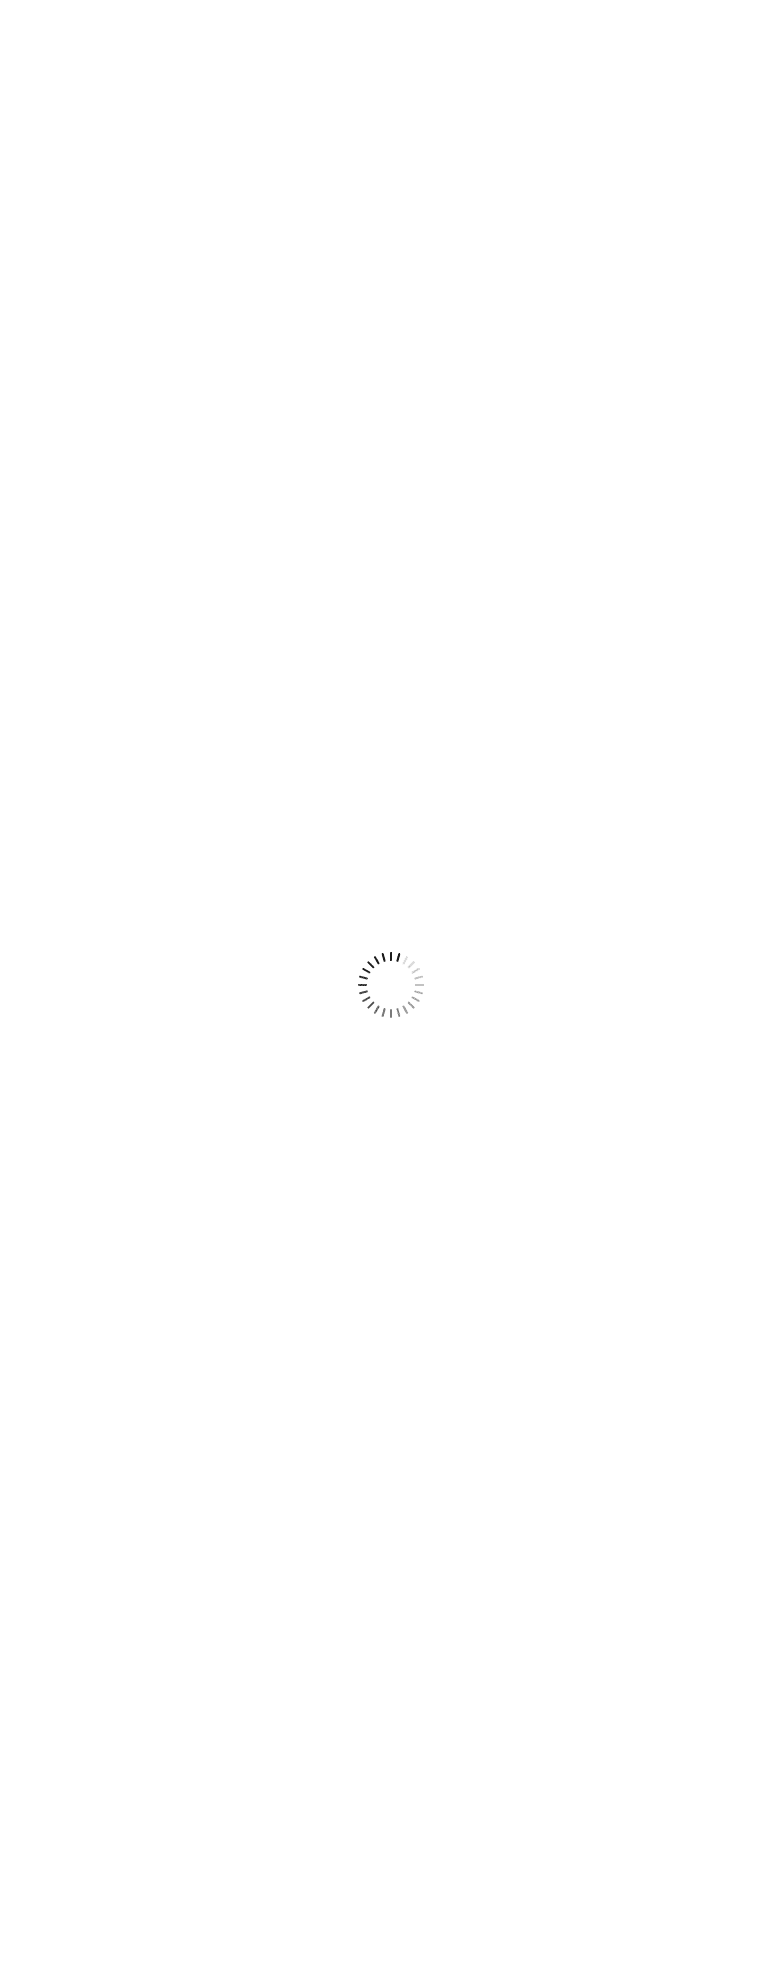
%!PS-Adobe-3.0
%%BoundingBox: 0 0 781 1969
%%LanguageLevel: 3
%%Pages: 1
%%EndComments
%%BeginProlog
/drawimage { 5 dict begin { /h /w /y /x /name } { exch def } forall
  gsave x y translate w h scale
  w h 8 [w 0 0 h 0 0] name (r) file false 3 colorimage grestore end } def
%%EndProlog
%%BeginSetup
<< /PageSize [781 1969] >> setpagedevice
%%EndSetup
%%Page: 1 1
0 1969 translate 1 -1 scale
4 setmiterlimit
1 setgray
0 0 781 1969 rectfill
(images/1.raw) 358 952 66 66 drawimage
showpage
%%EOF
